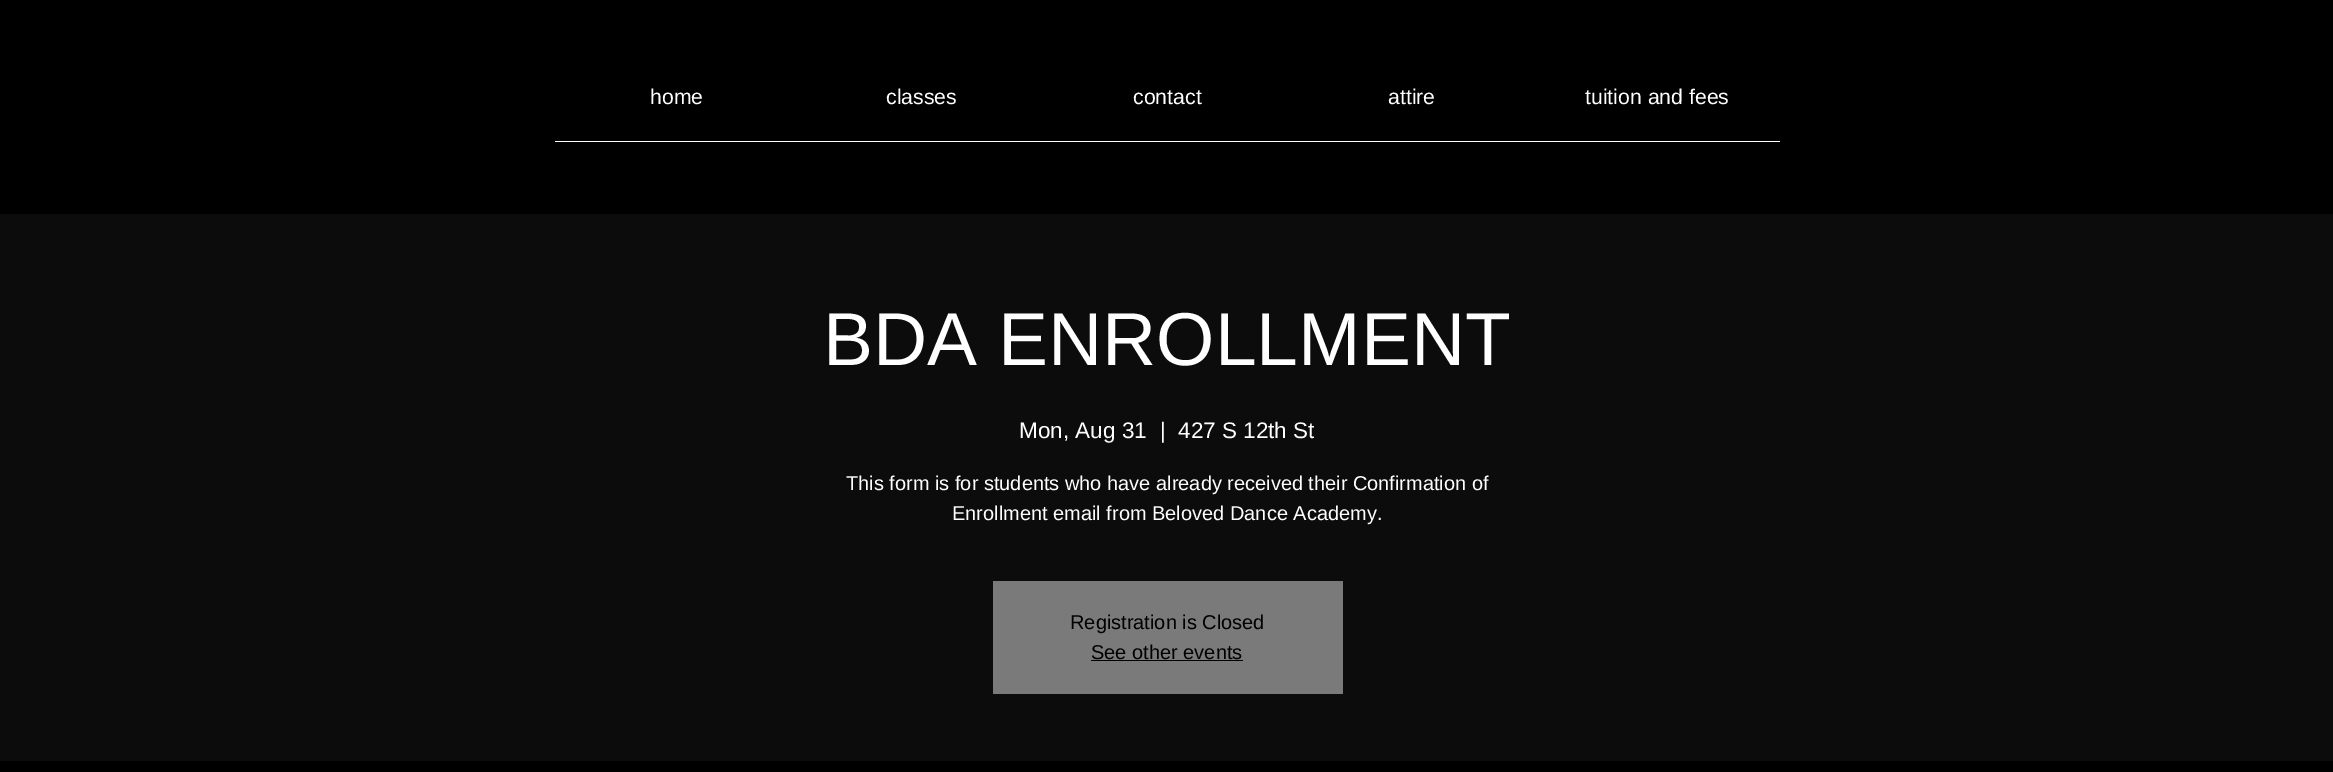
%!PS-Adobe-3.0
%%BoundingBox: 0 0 2333 772
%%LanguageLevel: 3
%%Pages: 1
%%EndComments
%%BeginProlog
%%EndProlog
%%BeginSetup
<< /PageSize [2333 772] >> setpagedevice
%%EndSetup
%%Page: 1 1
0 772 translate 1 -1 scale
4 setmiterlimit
0 setgray
0 0 2333 772 rectfill
1 setgray
555 141 1225 1 rectfill
0.047 setgray
0 214 2333 547 rectfill
0.478 setgray
993 581 350 113 rectfill
0 setgray
1091 660 152 1 rectfill
/LiberationSans-Regular [21.25 0 0 -21.25 0 0] selectfont
1 setgray
650 104 moveto (home) show
886 104 moveto (classes) show
1133 104 moveto (contact) show
1388 104 moveto (attire) show
1585 104 moveto (tuition and fees) show
/LiberationSans-Regular [75 0 0 -75 0 0] selectfont
823 365 moveto (BDA ENROLLMENT) show
/LiberationSans-Regular [22.5 0 0 -22.5 0 0] selectfont
1019 438 moveto (Mon, Aug 31) show
1160 438 moveto (|) show
1178 438 moveto (427 S 12th St) show
/LiberationSans-Regular [20 0 0 -20 0 0] selectfont
846 490 moveto (This form is for students who have already received their Confirmation of) show
952 520 moveto (Enrollment email from Beloved Dance Academy.) show
0 setgray
1070 629 moveto (Registration is Closed) show
1091 659 moveto (See other events) show
showpage
%%EOF
